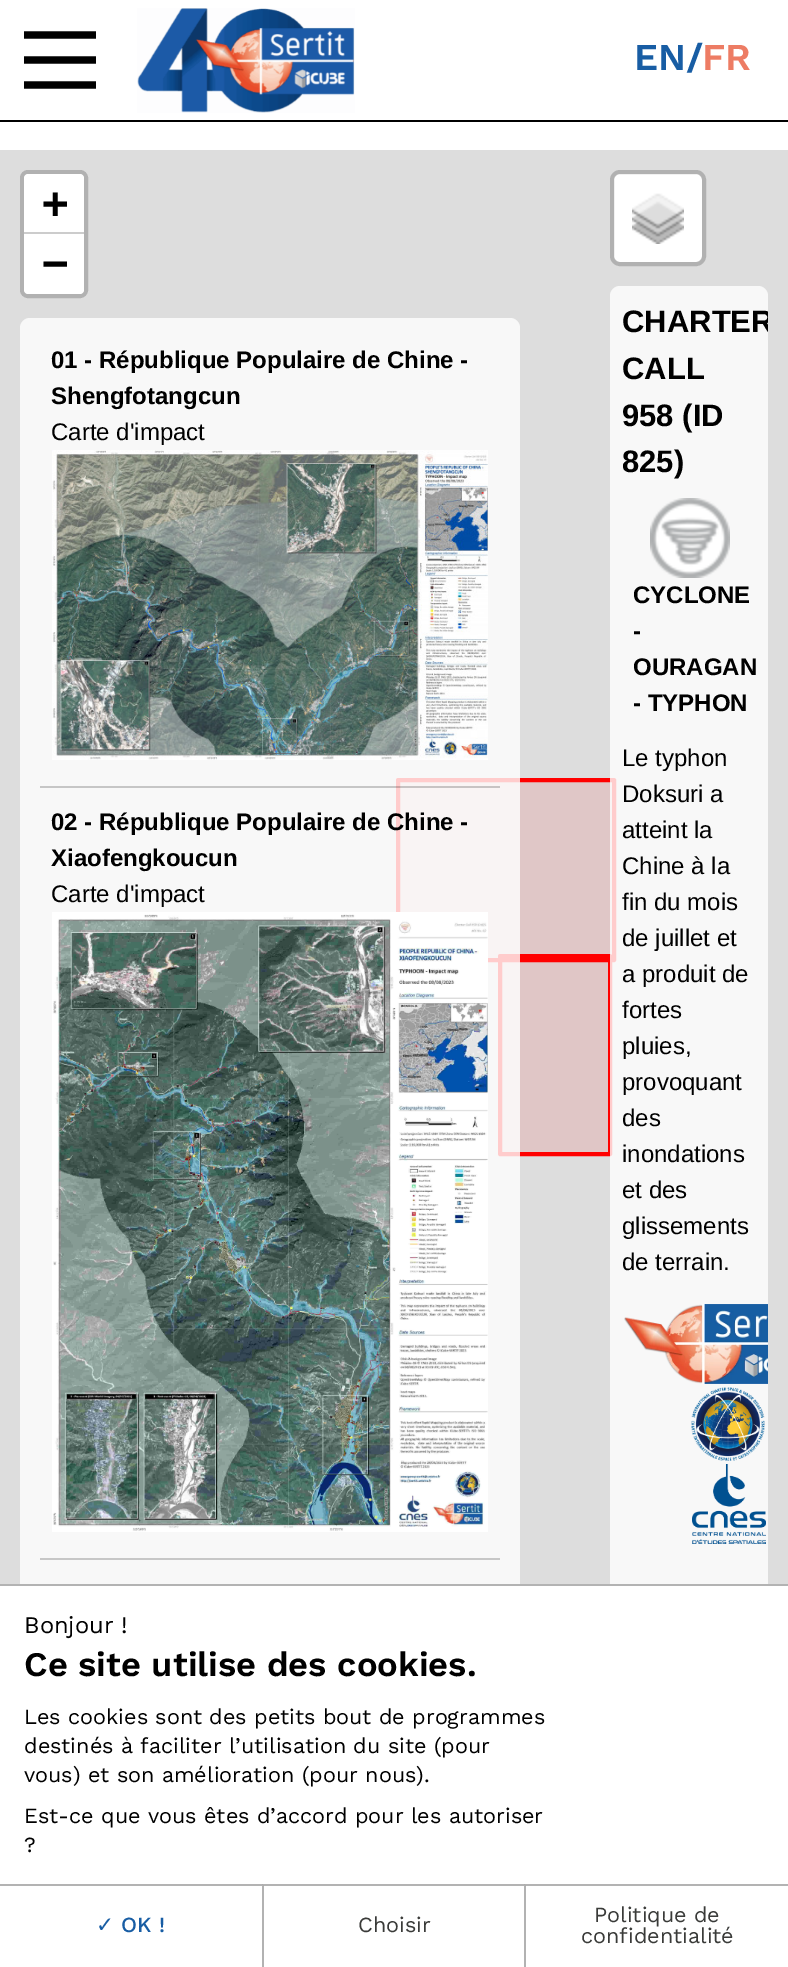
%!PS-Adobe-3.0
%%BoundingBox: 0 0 788 1967
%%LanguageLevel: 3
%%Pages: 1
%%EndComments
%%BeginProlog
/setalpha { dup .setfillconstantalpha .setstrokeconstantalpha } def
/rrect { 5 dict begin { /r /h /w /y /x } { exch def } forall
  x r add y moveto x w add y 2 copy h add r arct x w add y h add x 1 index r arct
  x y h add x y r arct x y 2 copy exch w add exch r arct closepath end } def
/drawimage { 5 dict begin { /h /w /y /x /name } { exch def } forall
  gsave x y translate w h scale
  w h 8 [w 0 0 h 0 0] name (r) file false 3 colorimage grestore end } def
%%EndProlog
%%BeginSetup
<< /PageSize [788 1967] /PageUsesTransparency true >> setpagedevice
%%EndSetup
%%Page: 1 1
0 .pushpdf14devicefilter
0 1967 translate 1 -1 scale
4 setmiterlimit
1 setgray
0 0 788 1967 rectfill
0 setgray
0 120 788 2 rectfill
7.2 setlinewidth
newpath 24 35 moveto 96 35 lineto stroke
newpath 24 60 moveto 96 60 lineto stroke
newpath 24 85 moveto 96 85 lineto stroke
(images/1.raw) 137 8 218 105 drawimage
0.867 setgray
0 150 788 1434 rectfill
0.694 setgray
4 setlinewidth
22 172 64 124 6 rrect stroke
1 setgray
newpath 28 174 moveto 80 174 lineto 82 174 84 176 84 178 curveto 84 234 lineto 24 234 lineto 24 178 lineto 24 176 26 174 28 174 curveto closepath fill
0.8 setgray
24 232 60 2 rectfill
1 setgray
newpath 24 234 moveto 84 234 lineto 84 290 lineto 84 292 82 294 80 294 curveto 28 294 lineto 26 294 24 292 24 290 curveto closepath fill
0.878 0.78 0.78 setrgbcolor
400 782 212 176 rectfill
1 0 0 setrgbcolor
1 setlinecap
1 setlinejoin
newpath 398 780 moveto 614 780 lineto 614 960 lineto 398 960 lineto closepath stroke
0.1 setalpha
502 962 106 190 rectfill
1 setalpha
newpath 500 956 moveto 610 956 lineto 610 1154 lineto 500 1154 lineto closepath stroke
0.8 setalpha
1 setgray
20 318 500 1622 10 rrect fill
1 setalpha
(images/2.raw) 52 450 436 310 drawimage
0.2 setalpha
0 setgray
40 786 460 2 rectfill
1 setalpha
(images/3.raw) 52 912 436 620 drawimage
0.78 setgray
40 1558 460 2 rectfill
1 setgray
614 174 88 88 6 rrect fill
0.2 setalpha
0 setgray
0 setlinecap
0 setlinejoin
612 172 92 92 8 rrect stroke
1 setalpha
(images/4.raw) 632 193 52 51 drawimage
0.8 setalpha
1 setgray
610 286 158 1618 10 rrect fill
1 setalpha
(images/5.raw) 650 498 80 80 drawimage
(images/6.raw) 624 1304 144 80 drawimage
(images/7.raw) 691 1387 74 74 drawimage
(images/8.raw) 692 1464 74 80 drawimage
0.702 setgray
0 1584 788 2 rectfill
0 1884 262 2 rectfill
newpath 262 1884 moveto 524 1884 lineto 524 1886 lineto 264 1886 lineto closepath fill
0.3 setalpha
0 setgray
newpath 262 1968 moveto 262 1884 lineto 264 1886 lineto 264 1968 lineto closepath fill
1 setalpha
0.702 setgray
newpath 524 1884 moveto 788 1884 lineto 788 1886 lineto 526 1886 lineto closepath fill
0.3 setalpha
0 setgray
newpath 524 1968 moveto 524 1884 lineto 526 1886 lineto 526 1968 lineto closepath fill
/WorkSans-SemiBold [38 0 0 -38 0 0] selectfont
1 setalpha
0.094 0.365 0.643 setrgbcolor
634 70 moveto (EN/) show
0.929 0.486 0.392 setrgbcolor
702 70 moveto (FR) show
/DejaVuSansMono-Bold [44 0 0 -44 0 0] selectfont
0 setgray
42 218 moveto (+) show
42 278 moveto (−) show
/LiberationSans-Bold [24 0 0 -24 0 0] selectfont
51 368 moveto (01 - République Populaire de Chine -) show
51 404 moveto (Shengfotangcun) show
/LiberationSans-Regular [24 0 0 -24 0 0] selectfont
51 440 moveto (Carte d'impact) show
/LiberationSans-Bold [24 0 0 -24 0 0] selectfont
51 830 moveto (02 - République Populaire de Chine -) show
51 866 moveto (Xiaofengkoucun) show
/LiberationSans-Regular [24 0 0 -24 0 0] selectfont
51 902 moveto (Carte d'impact) show
gsave
610 286 158 1618 10 rrect clip newpath
/LiberationSans-Bold [31 0 0 -31 0 0] selectfont
622 332 moveto (CHARTER) show
grestore
/LiberationSans-Bold [31 0 0 -31 0 0] selectfont
622 379 moveto (CALL) show
622 426 moveto (958 \(ID) show
622 472 moveto (825\)) show
/LiberationSans-Bold [24 0 0 -24 0 0] selectfont
633 603 moveto (CYCLONE) show
633 639 moveto (-) show
633 675 moveto (OURAGAN) show
633 711 moveto (- TYPHON) show
/LiberationSans-Regular [24 0 0 -24 0 0] selectfont
622 766 moveto (Le typhon) show
622 802 moveto (Doksuri a) show
622 838 moveto (atteint la) show
622 874 moveto (Chine à la) show
622 910 moveto (fin du mois) show
622 946 moveto (de juillet et) show
622 982 moveto (a produit de) show
622 1018 moveto (fortes) show
622 1054 moveto (pluies,) show
622 1090 moveto (provoquant) show
622 1126 moveto (des) show
622 1162 moveto (inondations) show
622 1198 moveto (et des) show
622 1234 moveto (glissements) show
622 1270 moveto (de terrain.) show
/WorkSans-Regular [23.75 0 0 -23.75 0 0] selectfont
24 1633 moveto (Bonjour !) show
/WorkSans-SemiBold [34.5 0 0 -34.5 0 0] selectfont
24 1676 moveto (Ce site utilise des cookies.) show
/WorkSans-Regular [21.6 0 0 -21.6 0 0] selectfont
24 1724 moveto (Les cookies sont des petits bout de programmes) show
24 1753 moveto (destinés à faciliter l’utilisation du site \(pour) show
24 1782 moveto (vous\) et son amélioration \(pour nous\).) show
24 1823 moveto (Est-ce que vous êtes d’accord pour les autoriser) show
24 1852 moveto (?) show
/DejaVuSans-Regular [21.6 0 0 -21.6 0 0] selectfont
0.094 0.365 0.643 setrgbcolor
96 1932 moveto (✓) show
/WorkSans-Medium [21.6 0 0 -21.6 0 0] selectfont
121 1932 moveto (OK !) show
/WorkSans-Regular [21.6 0 0 -21.6 0 0] selectfont
0.227 0.231 0.224 setrgbcolor
358 1932 moveto (Choisir) show
594 1922 moveto (Politique de) show
581 1943 moveto (confidentialité) show
.poppdf14devicefilter showpage
%%EOF
